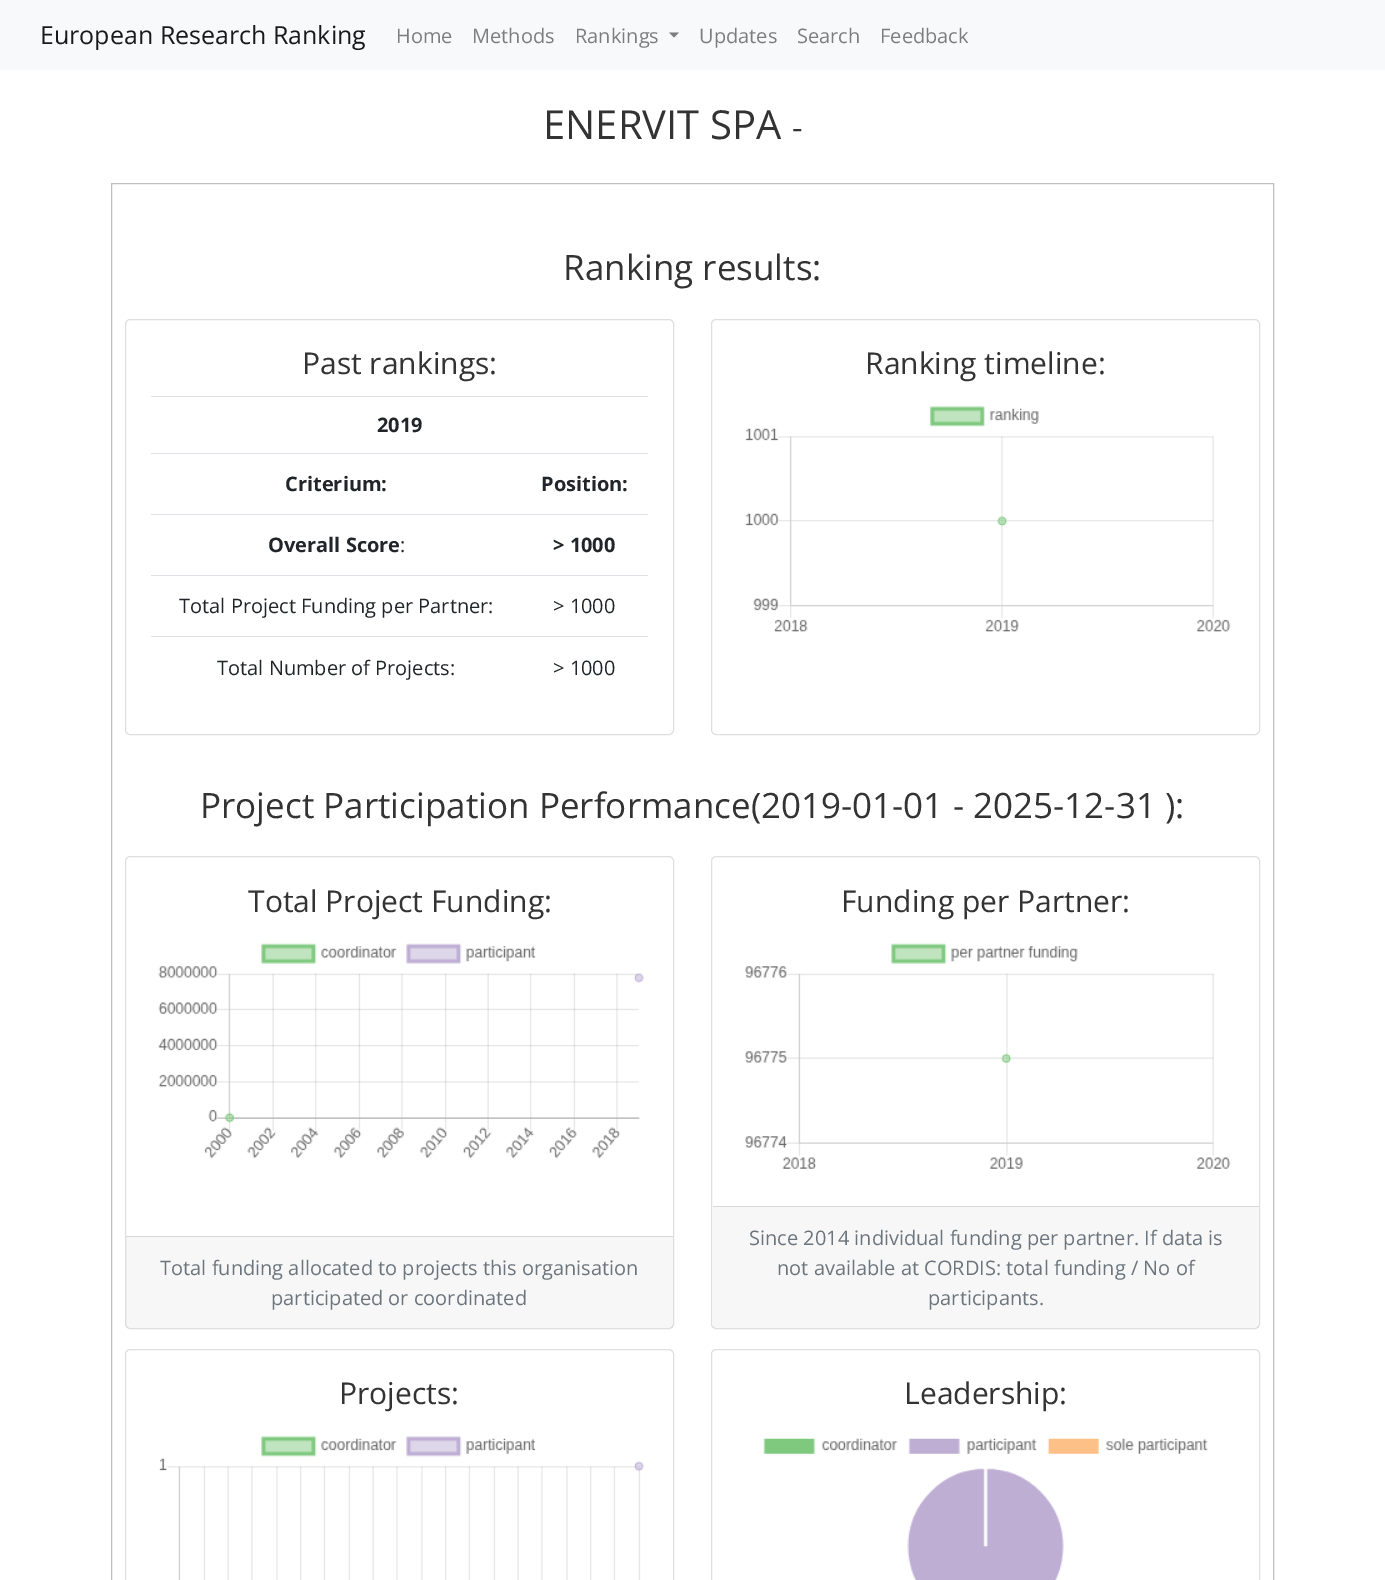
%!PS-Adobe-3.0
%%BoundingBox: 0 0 1385 1580
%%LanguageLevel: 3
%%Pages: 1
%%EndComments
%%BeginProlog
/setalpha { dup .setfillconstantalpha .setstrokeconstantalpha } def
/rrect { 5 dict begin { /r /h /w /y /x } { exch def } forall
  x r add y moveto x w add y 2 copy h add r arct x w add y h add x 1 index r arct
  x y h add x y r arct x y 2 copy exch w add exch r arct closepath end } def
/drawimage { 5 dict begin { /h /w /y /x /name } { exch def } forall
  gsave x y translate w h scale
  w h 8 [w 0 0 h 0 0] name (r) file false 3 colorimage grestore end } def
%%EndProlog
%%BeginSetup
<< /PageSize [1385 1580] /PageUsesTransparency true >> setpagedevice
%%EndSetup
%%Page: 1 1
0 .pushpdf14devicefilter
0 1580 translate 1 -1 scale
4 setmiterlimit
1 setgray
0 0 1385 1580 rectfill
0.973 0.976 0.98 setrgbcolor
0 0 1385 70 rectfill
0.486 0.49 0.49 setrgbcolor
newpath 669 32.5 moveto 679 32.5 lineto 674 37.5 lineto closepath fill
0.753 setgray
111.5 183.5 1162 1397 rectstroke
0.875 setgray
125.5 319.5 548 415 4.5 rrect stroke
0.871 0.886 0.902 setrgbcolor
151 396 497 1 rectfill
151 453 497 1 rectfill
151 514 497 1 rectfill
151 575 497 1 rectfill
151 636 497 1 rectfill
0.875 setgray
711.5 319.5 548 415 4.5 rrect stroke
(images/1.raw) 745 406 486 226 drawimage
125.5 856.5 548 472 4.5 rrect stroke
(images/2.raw) 158 943 486 216 drawimage
0.03 setalpha
0 setgray
126 1237 547 91 rectfill
1 setalpha
0.847 setgray
126 1236 547 1 rectfill
0.875 setgray
711.5 856.5 548 472 4.5 rrect stroke
(images/3.raw) 745 943 486 226 drawimage
0.03 setalpha
0 setgray
713 1207 546 121 rectfill
1 setalpha
0.847 setgray
713 1206 546 1 rectfill
0.875 setgray
125.5 1349.5 548 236 4.5 rrect stroke
(images/4.raw) 159 1436 485 144 drawimage
711.5 1349.5 548 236 4.5 rrect stroke
(images/5.raw) 763 1438 445 142 drawimage
/OpenSans-Regular [25 0 0 -25 0 0] selectfont
0.098 setgray
40 44 moveto (European Research Ranking) show
/OpenSans-Regular [20 0 0 -20 0 0] selectfont
0.486 0.49 0.49 setrgbcolor
396 43 moveto (Home) show
472 43 moveto (Methods) show
575 43 moveto (Rankings) show
699 43 moveto (Updates) show
797 43 moveto (Search) show
880 43 moveto (Feedback) show
/OpenSans-Regular [40 0 0 -40 0 0] selectfont
0.2 setgray
543 139 moveto (ENERVIT SPA) show
/OpenSans-Regular [33 0 0 -33 0 0] selectfont
792 139 moveto (-) show
/OpenSans-Regular [35 0 0 -35 0 0] selectfont
563 280 moveto (Ranking results:) show
/OpenSans-Regular [30 0 0 -30 0 0] selectfont
302 374 moveto (Past rankings:) show
/OpenSans-Bold [20 0 0 -20 0 0] selectfont
0.129 0.145 0.161 setrgbcolor
377 432 moveto (2019) show
285 491 moveto (Criterium:) show
541 491 moveto (Position:) show
268 552 moveto (Overall Score) show
/OpenSans-Regular [20 0 0 -20 0 0] selectfont
400 552 moveto (:) show
/OpenSans-Bold [20 0 0 -20 0 0] selectfont
553 552 moveto (> 1000) show
/OpenSans-Regular [20 0 0 -20 0 0] selectfont
179 613 moveto (Total Project Funding per Partner:) show
553 613 moveto (> 1000) show
217 675 moveto (Total Number of Projects:) show
553 675 moveto (> 1000) show
/OpenSans-Regular [30 0 0 -30 0 0] selectfont
0.2 setgray
865 374 moveto (Ranking timeline:) show
/OpenSans-Regular [35 0 0 -35 0 0] selectfont
200 818 moveto (Project Participation Performance\(2019-01-01 - 2025-12-31 \):) show
/OpenSans-Regular [30 0 0 -30 0 0] selectfont
248 912 moveto (Total Project Funding:) show
/OpenSans-Regular [20 0 0 -20 0 0] selectfont
0.424 0.459 0.49 setrgbcolor
160 1275 moveto (Total funding allocated to projects this organisation) show
271 1305 moveto (participated or coordinated) show
/OpenSans-Regular [30 0 0 -30 0 0] selectfont
0.2 setgray
841 912 moveto (Funding per Partner:) show
/OpenSans-Regular [20 0 0 -20 0 0] selectfont
0.424 0.459 0.49 setrgbcolor
749 1245 moveto (Since 2014 individual funding per partner. If data is) show
777 1275 moveto (not available at CORDIS: total funding / No of) show
928 1305 moveto (participants.) show
/OpenSans-Regular [30 0 0 -30 0 0] selectfont
0.2 setgray
339 1404 moveto (Projects:) show
904 1404 moveto (Leadership:) show
.poppdf14devicefilter showpage
%%EOF
